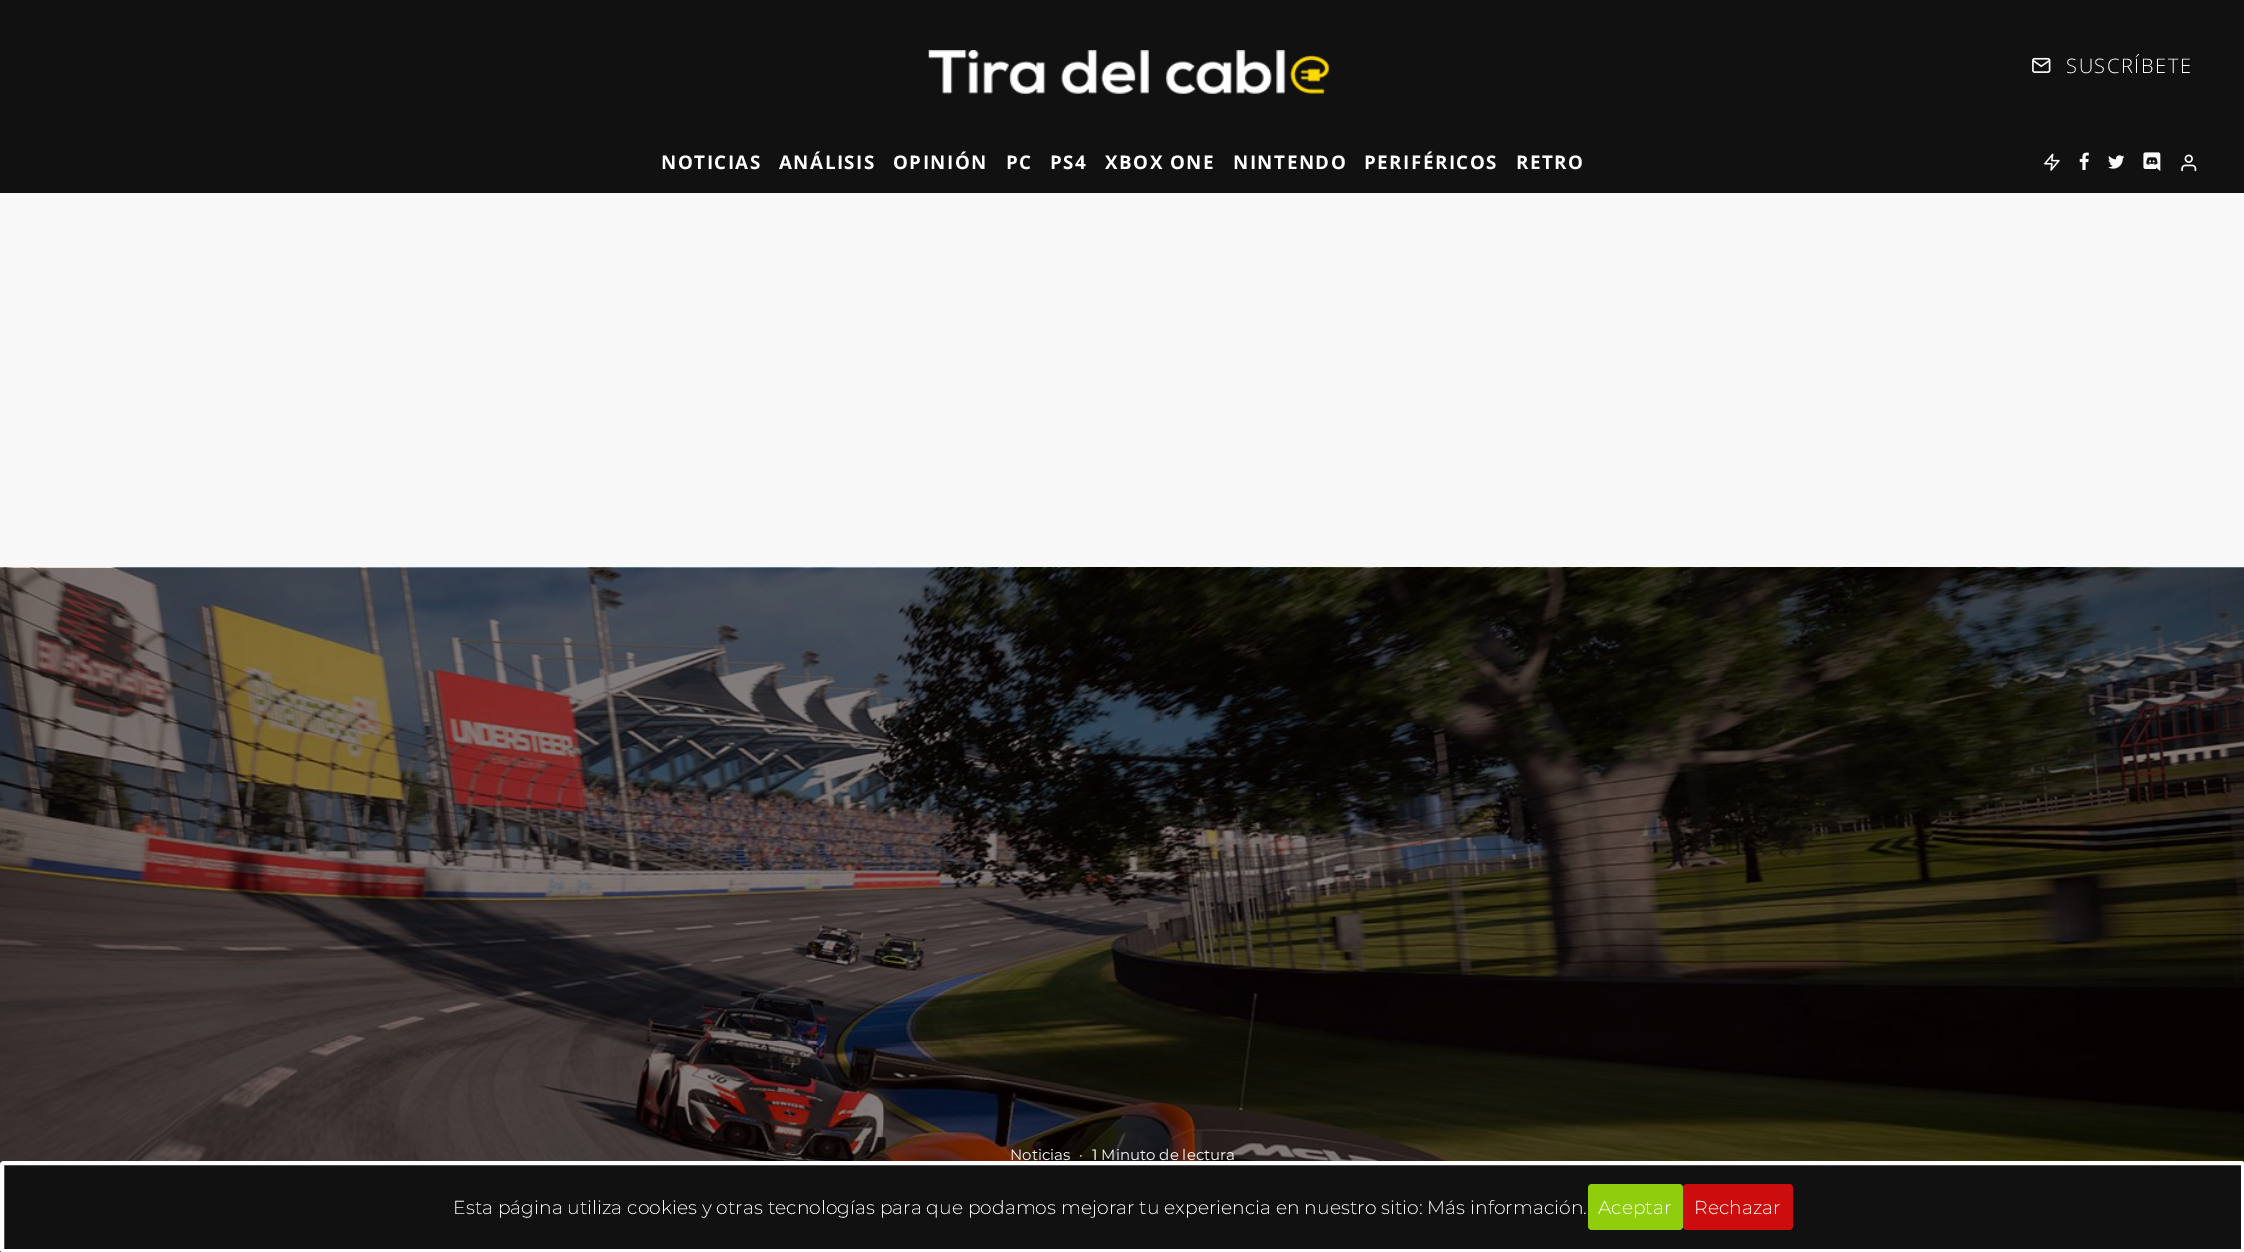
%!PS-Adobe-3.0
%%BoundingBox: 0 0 2244 1252
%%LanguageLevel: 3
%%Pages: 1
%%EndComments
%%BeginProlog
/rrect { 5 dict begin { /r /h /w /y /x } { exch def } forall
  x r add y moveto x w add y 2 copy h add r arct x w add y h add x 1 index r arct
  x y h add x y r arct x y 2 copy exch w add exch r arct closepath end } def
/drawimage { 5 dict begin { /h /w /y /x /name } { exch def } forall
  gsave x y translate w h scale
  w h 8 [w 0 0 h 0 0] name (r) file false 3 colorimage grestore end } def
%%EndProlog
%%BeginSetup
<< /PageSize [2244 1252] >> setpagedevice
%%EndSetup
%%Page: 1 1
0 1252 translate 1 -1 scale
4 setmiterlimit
0.973 setgray
0 0 2244 1252 rectfill
0.067 setgray
0 0 2244 193 rectfill
(images/1.raw) 928 50 401 44 drawimage
(images/2.raw) 2032 57 19 16 drawimage
(images/3.raw) 2044 153 16 18 drawimage
(images/4.raw) 2079 152 10 18 drawimage
(images/5.raw) 2108 155 17 14 drawimage
(images/6.raw) 2143 152 18 19 drawimage
(images/7.raw) 2181 154 16 18 drawimage
(images/8.raw) 0 567 2244 685 drawimage
2 1163 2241 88 2 rrect gsave fill grestore
1 setgray
4 setlinewidth
stroke
0.565 0.804 0.051 setrgbcolor
1588 1184 95 46 4 rrect fill
0.804 0.051 0.051 setrgbcolor
1683 1184 110 46 4 rrect fill
/OpenSans-Light [20 0 0 -20 0 0] selectfont
1 setgray
2066 73 moveto 1.6 0 (SUSCRÍBETE) ashow
/OpenSans-Bold [18.75 0 0 -18.75 0 0] selectfont
661 169 moveto 1.5 0 (NOTICIAS) ashow
779 169 moveto 1.5 0 (ANÁLISIS) ashow
893 169 moveto 1.5 0 (OPINIÓN) ashow
1006 169 moveto 1.5 0 (PC) ashow
1050 169 moveto 1.5 0 (PS4) ashow
1105 169 moveto 1.5 0 (XBOX ONE) ashow
1233 169 moveto 1.5 0 (NINTENDO) ashow
1364 169 moveto 1.5 0 (PERIFÉRICOS) ashow
1516 169 moveto 1.5 0 (RETRO) ashow
/Montserrat-Regular [15 0 0 -15 0 0] selectfont
1010 1160 moveto (Noticias) show
1079 1160 moveto (·) show
1092 1160 moveto (1 Minuto de lectura) show
/Montserrat-Light [18.75 0 0 -18.75 0 0] selectfont
453 1214 moveto (Esta página utiliza cookies y otras tecnologías para que podamos mejorar tu experiencia en nuestro sitio: Más información.) show
1598 1214 moveto (Aceptar) show
1694 1214 moveto (Rechazar) show
showpage
%%EOF
